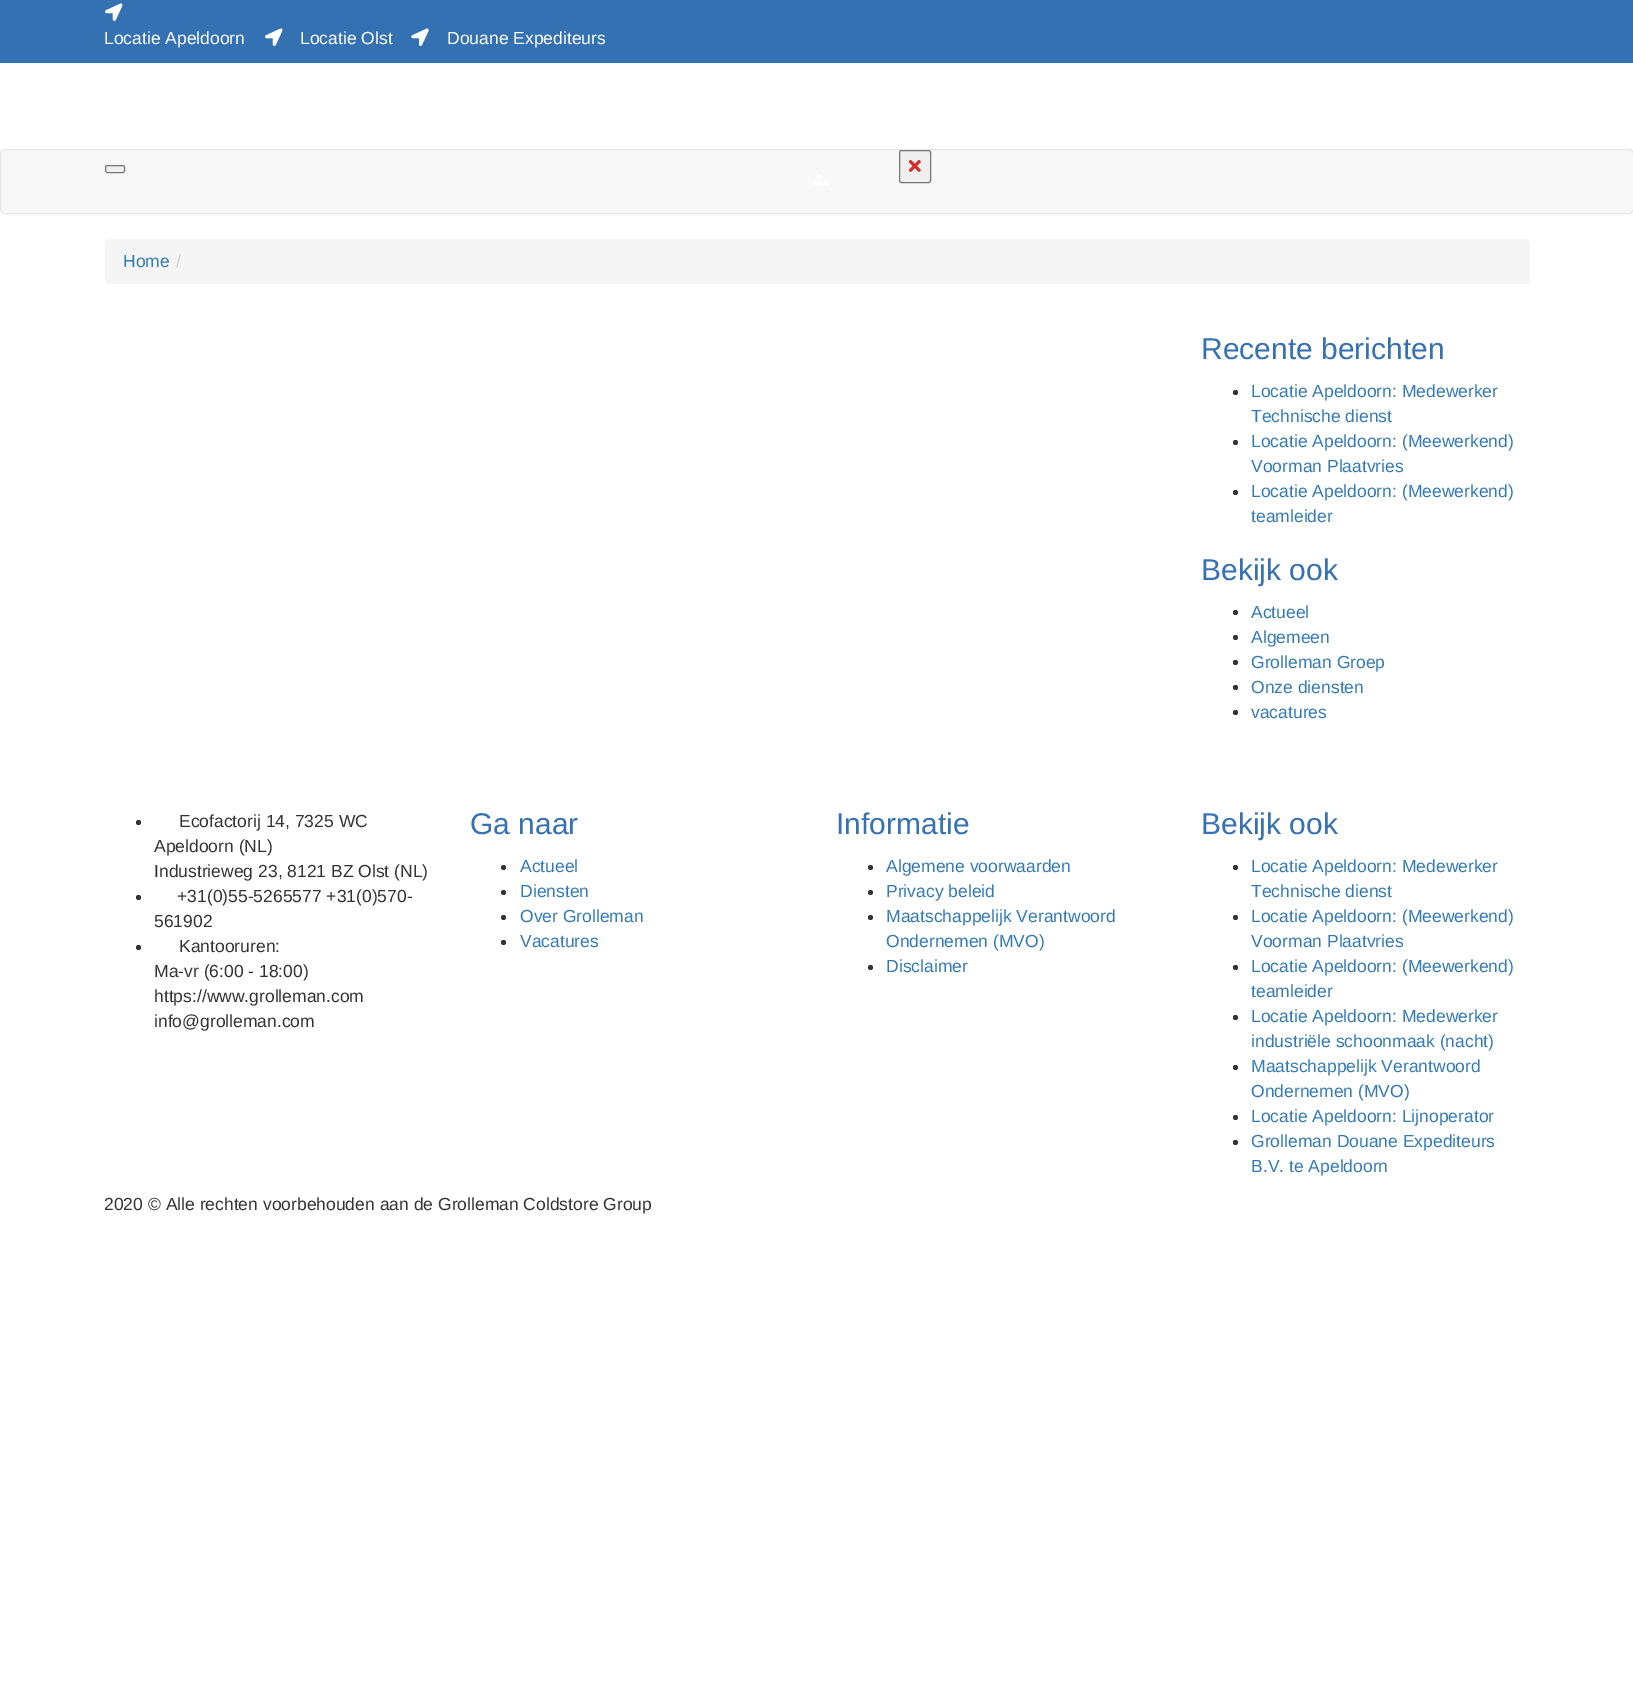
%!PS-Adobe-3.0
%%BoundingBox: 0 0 1633 1682
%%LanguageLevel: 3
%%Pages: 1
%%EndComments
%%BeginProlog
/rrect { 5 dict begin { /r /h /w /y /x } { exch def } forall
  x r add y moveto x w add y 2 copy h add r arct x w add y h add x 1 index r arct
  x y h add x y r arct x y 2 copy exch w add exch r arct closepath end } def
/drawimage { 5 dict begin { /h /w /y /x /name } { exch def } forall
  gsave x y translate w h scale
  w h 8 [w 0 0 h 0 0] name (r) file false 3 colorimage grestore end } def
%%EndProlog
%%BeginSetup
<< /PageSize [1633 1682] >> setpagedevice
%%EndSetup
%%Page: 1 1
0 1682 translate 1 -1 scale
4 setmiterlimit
1 setgray
0 0 1633 1682 rectfill
0.204 0.443 0.702 setrgbcolor
0 0 1633 63 rectfill
(images/1.raw) 105 3 18 18 drawimage
(images/1.raw) 265 28 18 18 drawimage
(images/2.raw) 411 28 18 18 drawimage
0.973 setgray
0.5 149.5 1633 64 4.5 rrect gsave fill grestore
0.906 setgray
stroke
0.937 setgray
105.5 165.5 19 7 2 rrect gsave fill grestore
0.463 setgray
stroke
(images/3.raw) 814 174 15 12 drawimage
0.937 setgray
899.5 150.5 31 32 2 rrect gsave fill grestore
0.463 setgray
stroke
(images/4.raw) 908 159 13 13 drawimage
0.961 setgray
105 239 1425 45 5 rrect fill
0.2 setgray
newpath 1235.5 392.5 2.5 0 360 arc closepath fill
newpath 1235.5 442.5 2.5 0 360 arc closepath fill
newpath 1235.5 492.5 2.5 0 360 arc closepath fill
newpath 1235.5 612.5 2.5 0 360 arc closepath fill
newpath 1235.5 637.5 2.5 0 360 arc closepath fill
newpath 1235.5 662.5 2.5 0 360 arc closepath fill
newpath 1235.5 687.5 2.5 0 360 arc closepath fill
newpath 1235.5 712.5 2.5 0 360 arc closepath fill
newpath 138.5 822.5 2.5 0 360 arc closepath fill
newpath 138.5 897.5 2.5 0 360 arc closepath fill
newpath 138.5 947.5 2.5 0 360 arc closepath fill
newpath 503.5 867.5 2.5 0 360 arc closepath fill
newpath 503.5 892.5 2.5 0 360 arc closepath fill
newpath 503.5 917.5 2.5 0 360 arc closepath fill
newpath 503.5 942.5 2.5 0 360 arc closepath fill
newpath 870.5 867.5 2.5 0 360 arc closepath fill
newpath 870.5 892.5 2.5 0 360 arc closepath fill
newpath 870.5 917.5 2.5 0 360 arc closepath fill
newpath 870.5 967.5 2.5 0 360 arc closepath fill
newpath 1235.5 867.5 2.5 0 360 arc closepath fill
newpath 1235.5 917.5 2.5 0 360 arc closepath fill
newpath 1235.5 967.5 2.5 0 360 arc closepath fill
newpath 1235.5 1017.5 2.5 0 360 arc closepath fill
newpath 1235.5 1067.5 2.5 0 360 arc closepath fill
newpath 1235.5 1117.5 2.5 0 360 arc closepath fill
newpath 1235.5 1142.5 2.5 0 360 arc closepath fill
/LiberationSans-Regular [17.5 0 0 -17.5 0 0] selectfont
1 setgray
104 44 moveto (Locatie Apeldoorn) show
300 44 moveto (Locatie Olst) show
447 44 moveto (Douane Expediteurs) show
0.2 0.478 0.718 setrgbcolor
123 267 moveto (Home) show
0.8 setgray
176 267 moveto (/) show
/LiberationSans-Regular [30 0 0 -30 0 0] selectfont
0.208 0.443 0.702 setrgbcolor
1201 359 moveto (Recente berichten) show
/LiberationSans-Regular [17.5 0 0 -17.5 0 0] selectfont
0.2 0.478 0.718 setrgbcolor
1251 397 moveto (Locatie Apeldoorn: Medewerker) show
1251 422 moveto (Technische dienst) show
1251 447 moveto (Locatie Apeldoorn: \(Meewerkend\)) show
1251 472 moveto (Voorman Plaatvries) show
1251 497 moveto (Locatie Apeldoorn: \(Meewerkend\)) show
1251 522 moveto (teamleider) show
/LiberationSans-Regular [30 0 0 -30 0 0] selectfont
0.208 0.443 0.702 setrgbcolor
1201 580 moveto (Bekijk ook) show
/LiberationSans-Regular [17.5 0 0 -17.5 0 0] selectfont
0.2 0.478 0.718 setrgbcolor
1251 618 moveto (Actueel) show
1251 643 moveto (Algemeen) show
1251 668 moveto (Grolleman Groep) show
1251 693 moveto (Onze diensten) show
1251 718 moveto (vacatures) show
0.2 setgray
179 827 moveto (Ecofactorij 14, 7325 WC) show
154 852 moveto (Apeldoorn \(NL\)) show
154 877 moveto (Industrieweg 23, 8121 BZ Olst \(NL\)) show
177 902 moveto (+31\(0\)55-5265577 +31\(0\)570-) show
154 927 moveto (561902) show
179 952 moveto (Kantooruren:) show
154 977 moveto (Ma-vr \(6:00 - 18:00\)) show
154 1002 moveto (https://www.grolleman.com) show
154 1027 moveto (info@grolleman.com) show
/LiberationSans-Regular [30 0 0 -30 0 0] selectfont
0.208 0.443 0.702 setrgbcolor
470 834 moveto (Ga naar) show
/LiberationSans-Regular [17.5 0 0 -17.5 0 0] selectfont
0.2 0.478 0.718 setrgbcolor
520 872 moveto (Actueel) show
520 897 moveto (Diensten) show
520 922 moveto (Over Grolleman) show
520 947 moveto (Vacatures) show
/LiberationSans-Regular [30 0 0 -30 0 0] selectfont
0.208 0.443 0.702 setrgbcolor
836 834 moveto (Informatie) show
/LiberationSans-Regular [17.5 0 0 -17.5 0 0] selectfont
0.2 0.478 0.718 setrgbcolor
886 872 moveto (Algemene voorwaarden) show
886 897 moveto (Privacy beleid) show
886 922 moveto (Maatschappelijk Verantwoord) show
886 947 moveto (Ondernemen \(MVO\)) show
886 972 moveto (Disclaimer) show
/LiberationSans-Regular [30 0 0 -30 0 0] selectfont
0.208 0.443 0.702 setrgbcolor
1201 834 moveto (Bekijk ook) show
/LiberationSans-Regular [17.5 0 0 -17.5 0 0] selectfont
0.2 0.478 0.718 setrgbcolor
1251 872 moveto (Locatie Apeldoorn: Medewerker) show
1251 897 moveto (Technische dienst) show
1251 922 moveto (Locatie Apeldoorn: \(Meewerkend\)) show
1251 947 moveto (Voorman Plaatvries) show
1251 972 moveto (Locatie Apeldoorn: \(Meewerkend\)) show
1251 997 moveto (teamleider) show
1251 1022 moveto (Locatie Apeldoorn: Medewerker) show
1251 1047 moveto (industriële schoonmaak \(nacht\)) show
1251 1072 moveto (Maatschappelijk Verantwoord) show
1251 1097 moveto (Ondernemen \(MVO\)) show
1251 1122 moveto (Locatie Apeldoorn: Lijnoperator) show
1251 1147 moveto (Grolleman Douane Expediteurs) show
1251 1172 moveto (B.V. te Apeldoorn) show
0.2 setgray
104 1210 moveto (2020 © Alle rechten voorbehouden aan de Grolleman Coldstore Group) show
showpage
%%EOF
